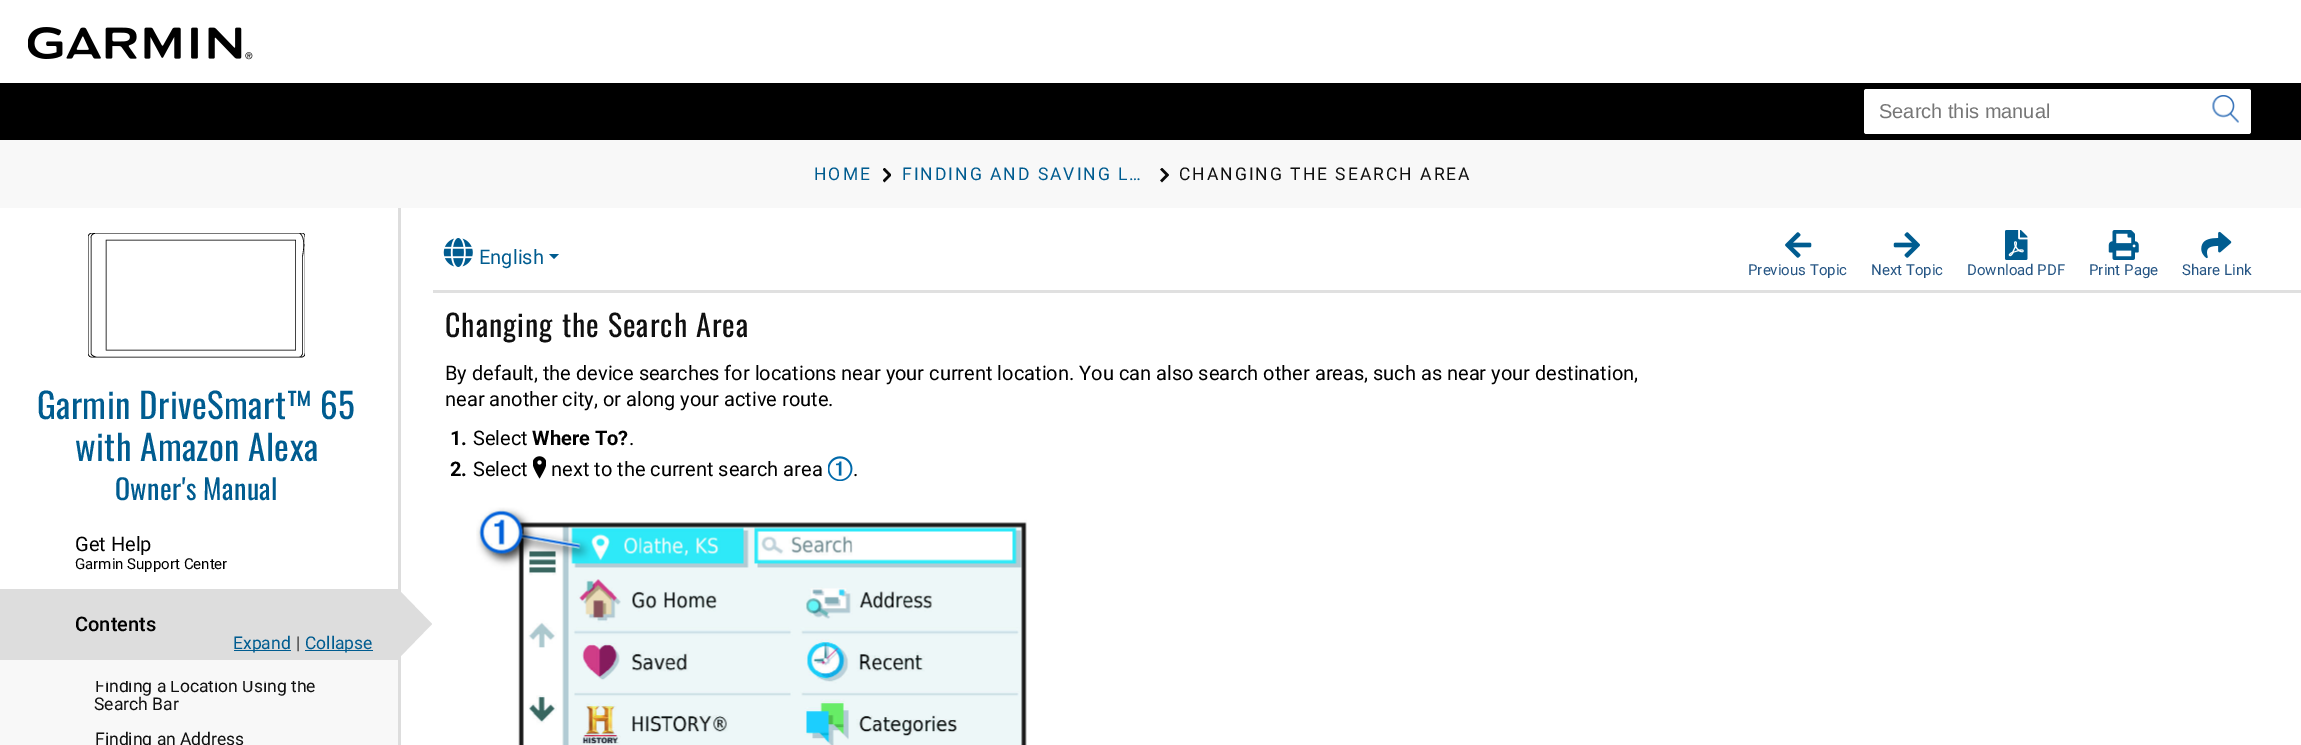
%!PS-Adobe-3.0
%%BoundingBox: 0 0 2301 745
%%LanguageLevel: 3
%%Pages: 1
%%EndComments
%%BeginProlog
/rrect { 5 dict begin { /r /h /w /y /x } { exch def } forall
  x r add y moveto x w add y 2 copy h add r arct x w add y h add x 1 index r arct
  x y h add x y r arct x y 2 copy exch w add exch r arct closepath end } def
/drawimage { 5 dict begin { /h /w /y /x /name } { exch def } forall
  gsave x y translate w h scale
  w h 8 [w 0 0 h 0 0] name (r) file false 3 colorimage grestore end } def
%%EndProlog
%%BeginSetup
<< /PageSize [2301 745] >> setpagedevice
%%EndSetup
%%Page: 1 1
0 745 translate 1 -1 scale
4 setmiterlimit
1 setgray
0 0 2301 745 rectfill
(images/1.raw) 28 27 225 33 drawimage
0 setgray
0 83 2301 57 rectfill
1 setgray
1864 89 387 45 2.5 rrect fill
(images/2.raw) 2212 95 27 28 drawimage
0.973 setgray
0 140 2301 68 rectfill
(images/3.raw) 883 168 8 15 drawimage
(images/4.raw) 1160 168 9 15 drawimage
0.878 setgray
433 290 1868 3 rectfill
(images/5.raw) 443 238 30 29 drawimage
0 0.361 0.565 setrgbcolor
newpath 549 254 moveto 559 254 lineto 554 259 lineto closepath fill
(images/6.raw) 1785 232 27 26 drawimage
(images/7.raw) 1893 232 27 26 drawimage
(images/8.raw) 2005 230 23 30 drawimage
(images/9.raw) 2108 230 31 30 drawimage
(images/10.raw) 2201 231 31 28 drawimage
(images/11.raw) 533 456 13 23 drawimage
(images/12.raw) 828 456 25 25 drawimage
(images/13.raw) 476 507 551 238 drawimage
0.867 setgray
398 208 3 537 rectfill
gsave
88 233 217 125 rectclip
0 setgray
0.6 setlinewidth
newpath 299.5 357 moveto 301 356.5 lineto 302.5 354 lineto 302.5 256.5 lineto 302.5 256 307 236 299 233 curveto 95 233.5 moveto 91 233.5 91 237.5 91 237.5 curveto 91 353 lineto 91 356 96 357 96 357 curveto 88 237 moveto 88.5 233 92 233 92 233 curveto 302 233 lineto 305.5 233.5 305 237 305 237 curveto 305 353 lineto 305 357 302 357 302 357 curveto 91.5 357 lineto 88 357 88 353 88 353 curveto closepath 106 240 moveto 295.5 240 lineto 295.5 350 lineto 106 350 lineto closepath stroke
grestore
0 589 398 71 rectfill
newpath 398 659 moveto 398 589 lineto 432 624 lineto closepath fill
0.973 setgray
0 660 398 85 rectfill
0 0.361 0.565 setrgbcolor
234 650 57 1 rectfill
305 650 68 1 rectfill
/LiberationSans-Regular [20 0 0 -20 0 0] selectfont
0.463 setgray
1879 118 moveto (Search this manual) show
/Roboto-Regular [17.5 0 0 -17.5 0 0] selectfont
0 0.361 0.565 setrgbcolor
814 180 moveto 2 0 (HOME) ashow
902 180 moveto 2 0 (FINDING AND SAVING L…) ashow
0.063 setgray
1179 180 moveto 2 0 (CHANGING THE SEARCH AREA) ashow
/Roboto-Regular [20 0 0 -20 0 0] selectfont
0 0.361 0.565 setrgbcolor
479 264 moveto (English) show
/Roboto-Regular [15 0 0 -15 0 0] selectfont
0.145 0.333 0.518 setrgbcolor
1748 275 moveto (Previous Topic) show
1871 275 moveto (Next Topic) show
1967 275 moveto (Download PDF) show
2089 275 moveto (Print Page) show
2182 275 moveto (Share Link) show
/Oswald-Regular [30 0 0 -30 0 0] selectfont
0.063 setgray
445 337 moveto 1 0 (Changing the Search Area) ashow
/Roboto-Regular [20 0 0 -20 0 0] selectfont
0 setgray
445 380 moveto (By default, the device searches for locations near your current location. You can also search other areas, such as near your destination,) show
445 406 moveto (near another city, or along your active route.) show
/Roboto-Bold [20 0 0 -20 0 0] selectfont
450 445 moveto (1.) show
/Roboto-Regular [20 0 0 -20 0 0] selectfont
473 445 moveto (Select) show
/Roboto-Bold [20 0 0 -20 0 0] selectfont
532 445 moveto (Where To?) show
/Roboto-Regular [20 0 0 -20 0 0] selectfont
629 445 moveto (.) show
/Roboto-Bold [20 0 0 -20 0 0] selectfont
450 476 moveto (2.) show
/Roboto-Regular [20 0 0 -20 0 0] selectfont
473 476 moveto (Select) show
551 476 moveto (next to the current search area) show
853 476 moveto (.) show
/Oswald-Regular [35 0 0 -35 0 0] selectfont
0 0.361 0.565 setrgbcolor
37 419 moveto 0.4 0 (Garmin DriveSmart™ 65) ashow
75 461 moveto 0.4 0 (with Amazon Alexa) ashow
/Oswald-Regular [28 0 0 -28 0 0] selectfont
115 500 moveto 0.4 0 (Owner's Manual) ashow
/Roboto-Regular [20 0 0 -20 0 0] selectfont
0 setgray
75 551 moveto (Get Help) show
/Roboto-Regular [15 0 0 -15 0 0] selectfont
75 569 moveto (Garmin Support Center) show
/Roboto-Medium [20 0 0 -20 0 0] selectfont
75 631 moveto (Contents) show
/Roboto-Regular [17.5 0 0 -17.5 0 0] selectfont
0 0.361 0.565 setrgbcolor
233 649 moveto (Expand) show
0.2 setgray
296 649 moveto (|) show
0 0.361 0.565 setrgbcolor
305 649 moveto (Collapse) show
gsave
75 681 288 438 rectclip
0.063 setgray
95 692 moveto (Finding a Location Using the) show
grestore
0.063 setgray
94 710 moveto (Search Bar) show
95 745 moveto (Finding an Address) show
showpage
%%EOF
